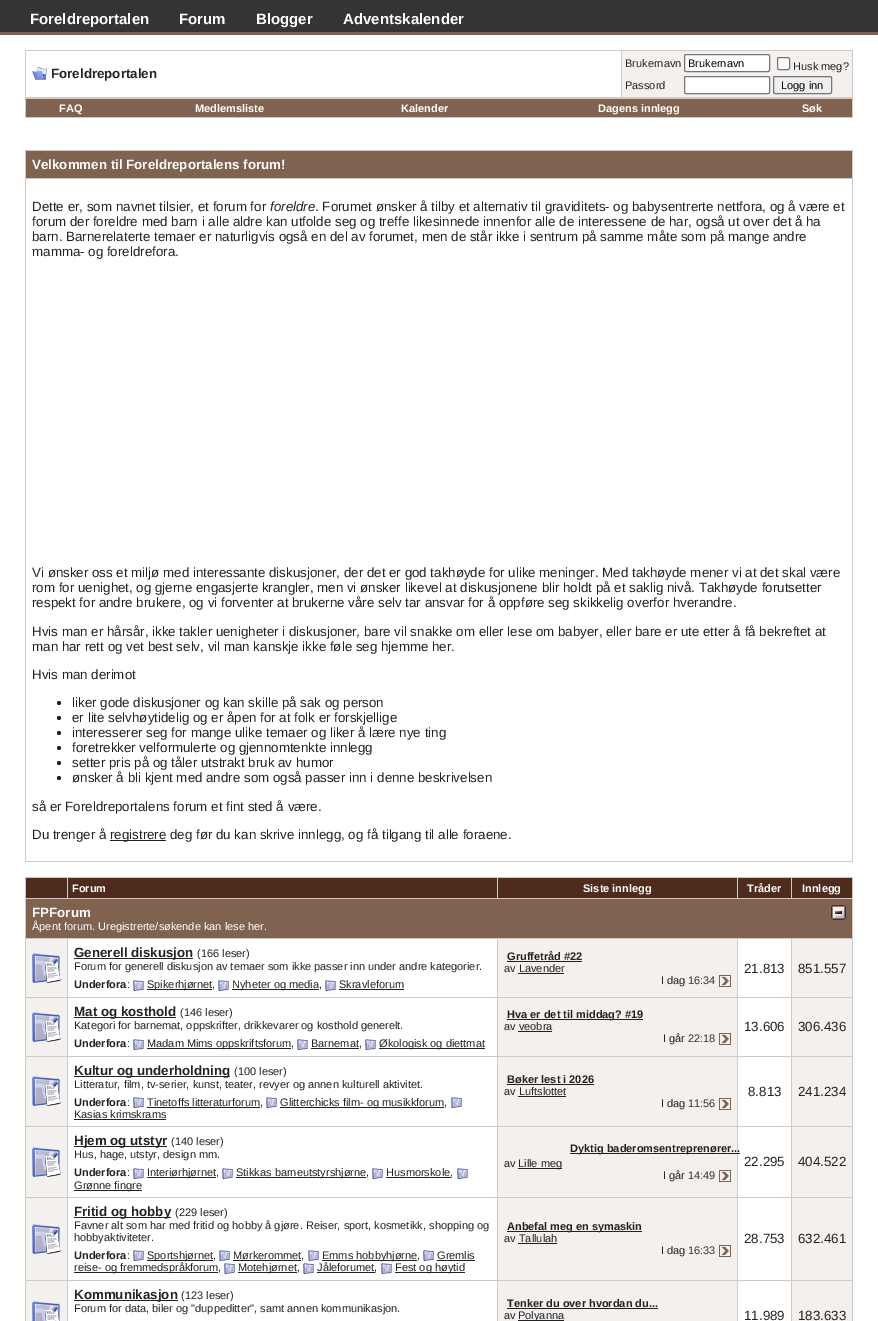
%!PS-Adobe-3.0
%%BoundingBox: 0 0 878 1321
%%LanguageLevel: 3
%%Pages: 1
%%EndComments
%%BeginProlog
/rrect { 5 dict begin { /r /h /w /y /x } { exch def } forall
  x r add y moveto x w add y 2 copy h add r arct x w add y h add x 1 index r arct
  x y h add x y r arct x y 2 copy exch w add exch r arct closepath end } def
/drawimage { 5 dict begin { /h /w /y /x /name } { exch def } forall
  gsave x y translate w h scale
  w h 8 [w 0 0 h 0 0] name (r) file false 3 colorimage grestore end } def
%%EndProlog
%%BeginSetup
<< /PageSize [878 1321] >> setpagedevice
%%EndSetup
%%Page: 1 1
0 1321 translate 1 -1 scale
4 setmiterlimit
1 setgray
0 0 878 1321 rectfill
0.204 setgray
0 0 878 32 rectfill
0.498 0.384 0.31 setrgbcolor
0 32 878 3 rectfill
0.827 0.788 0.765 setrgbcolor
25 50 828 68 rectfill
1 setgray
26 51 595 46 rectfill
(images/1.raw) 32 67 15 13 drawimage
0.953 0.941 0.933 setrgbcolor
622 51 230 46 rectfill
1 setgray
684.5 54.5 85 17 1.5 rrect gsave fill grestore
0.463 setgray
stroke
1 setgray
777.5 57.5 12 12 1.5 rrect gsave fill grestore
0.463 setgray
stroke
1 setgray
684.5 76.5 85 17 1.5 rrect gsave fill grestore
0.463 setgray
stroke
0.937 setgray
773.5 76.5 58 17 1.5 rrect gsave fill grestore
0.463 setgray
stroke
0.498 0.384 0.31 setrgbcolor
26 99 826 18 rectfill
0.827 0.788 0.765 setrgbcolor
25 150 828 712 rectfill
0.498 0.384 0.31 setrgbcolor
26 151 826 27 rectfill
1 setgray
26 179 826 682 rectfill
0.133 setgray
newpath 59 703 2 0 360 arc closepath fill
newpath 59 718 2 0 360 arc closepath fill
newpath 59 733 2 0 360 arc closepath fill
newpath 59 748 2 0 360 arc closepath fill
newpath 59 763 2 0 360 arc closepath fill
newpath 59 778 2 0 360 arc closepath fill
110 840 56 1 rectfill
0.827 0.788 0.765 setrgbcolor
25 877 828 444 rectfill
0.31 0.169 0.114 setrgbcolor
26 878 41 20 rectfill
68 878 429 20 rectfill
498 878 239 20 rectfill
738 878 53 20 rectfill
792 878 60 20 rectfill
0.498 0.384 0.31 setrgbcolor
26 899 826 39 rectfill
(images/2.raw) 831 905 15 15 drawimage
0.953 0.941 0.933 setrgbcolor
26 939 41 58 rectfill
(images/3.raw) 32 953 29 30 drawimage
1 setgray
68 939 429 58 rectfill
0.133 setgray
74 958 119 1 rectfill
(images/4.raw) 133 980 11 11 drawimage
147 989 65 1 rectfill
(images/4.raw) 218 980 11 11 drawimage
232 989 87 1 rectfill
(images/4.raw) 325 980 11 11 drawimage
339 989 65 1 rectfill
0.953 0.941 0.933 setrgbcolor
498 939 239 58 rectfill
0.133 setgray
507 961 75 1 rectfill
518 973 46 1 rectfill
(images/5.raw) 719 975 12 12 drawimage
1 setgray
738 939 53 58 rectfill
0.953 0.941 0.933 setrgbcolor
792 939 60 58 rectfill
26 998 41 58 rectfill
(images/3.raw) 32 1012 29 30 drawimage
1 setgray
68 998 429 58 rectfill
0.133 setgray
74 1017 102 1 rectfill
(images/4.raw) 133 1039 11 11 drawimage
147 1048 144 1 rectfill
(images/4.raw) 297 1039 11 11 drawimage
311 1048 48 1 rectfill
(images/4.raw) 365 1039 11 11 drawimage
379 1048 106 1 rectfill
0.953 0.941 0.933 setrgbcolor
498 998 239 58 rectfill
0.133 setgray
507 1019 136 1 rectfill
518 1031 34 1 rectfill
(images/5.raw) 719 1033 12 12 drawimage
1 setgray
738 998 53 58 rectfill
0.953 0.941 0.933 setrgbcolor
792 998 60 58 rectfill
26 1057 41 69 rectfill
(images/3.raw) 32 1076 29 30 drawimage
1 setgray
68 1057 429 69 rectfill
0.133 setgray
74 1076 156 1 rectfill
(images/4.raw) 133 1097 11 11 drawimage
147 1107 113 1 rectfill
(images/4.raw) 266 1097 11 11 drawimage
280 1107 164 1 rectfill
(images/4.raw) 451 1097 11 11 drawimage
74 1119 92 1 rectfill
0.953 0.941 0.933 setrgbcolor
498 1057 239 69 rectfill
0.133 setgray
507 1084 87 1 rectfill
518 1096 48 1 rectfill
(images/5.raw) 719 1098 12 12 drawimage
1 setgray
738 1057 53 69 rectfill
0.953 0.941 0.933 setrgbcolor
792 1057 60 69 rectfill
26 1127 41 70 rectfill
(images/3.raw) 32 1147 29 30 drawimage
1 setgray
68 1127 429 70 rectfill
0.133 setgray
74 1146 93 1 rectfill
(images/4.raw) 133 1168 11 11 drawimage
147 1177 69 1 rectfill
(images/4.raw) 222 1168 11 11 drawimage
236 1177 130 1 rectfill
(images/4.raw) 372 1168 11 11 drawimage
386 1177 65 1 rectfill
(images/4.raw) 457 1168 11 11 drawimage
74 1190 68 1 rectfill
0.953 0.941 0.933 setrgbcolor
498 1127 239 70 rectfill
1 setgray
738 1127 53 70 rectfill
0.133 setgray
570 1153 170 1 rectfill
518 1168 44 1 rectfill
(images/5.raw) 719 1170 12 12 drawimage
0.953 0.941 0.933 setrgbcolor
792 1127 60 70 rectfill
26 1198 41 82 rectfill
(images/3.raw) 32 1224 29 30 drawimage
1 setgray
68 1198 429 82 rectfill
0.133 setgray
74 1217 97 1 rectfill
(images/4.raw) 133 1250 11 11 drawimage
147 1260 66 1 rectfill
(images/4.raw) 219 1250 11 11 drawimage
233 1260 68 1 rectfill
(images/4.raw) 308 1250 11 11 drawimage
322 1260 95 1 rectfill
(images/4.raw) 423 1250 11 11 drawimage
437 1260 38 1 rectfill
74 1272 144 1 rectfill
(images/4.raw) 224 1263 11 11 drawimage
238 1272 59 1 rectfill
(images/4.raw) 303 1263 11 11 drawimage
317 1272 58 1 rectfill
(images/4.raw) 381 1263 11 11 drawimage
395 1272 70 1 rectfill
0.953 0.941 0.933 setrgbcolor
498 1198 239 82 rectfill
0.133 setgray
507 1231 135 1 rectfill
518 1243 39 1 rectfill
(images/5.raw) 719 1245 12 12 drawimage
1 setgray
738 1198 53 82 rectfill
0.953 0.941 0.933 setrgbcolor
792 1198 60 82 rectfill
26 1281 41 40 rectfill
(images/6.raw) 32 1301 28 20 drawimage
1 setgray
68 1281 429 40 rectfill
0.133 setgray
74 1300 104 1 rectfill
0.953 0.941 0.933 setrgbcolor
498 1281 239 40 rectfill
0.133 setgray
507 1308 151 1 rectfill
518 1320 46 1 rectfill
1 setgray
738 1281 53 40 rectfill
0.953 0.941 0.933 setrgbcolor
792 1281 60 40 rectfill
/LiberationSans-Bold [15 0 0 -15 0 0] selectfont
1 setgray
30 24 moveto (Foreldreportalen) show
179 24 moveto (Forum) show
256 24 moveto (Blogger) show
343 24 moveto (Adventskalender) show
/LiberationSans-Bold [13.33 0 0 -13.33 0 0] selectfont
0.133 setgray
51 78 moveto (Foreldreportalen) show
/LiberationSans-Regular [11 0 0 -11 0 0] selectfont
625 67 moveto (Brukernavn) show
0 setgray
688 67 moveto (Brukernavn) show
0.133 setgray
793 70 moveto (Husk meg?) show
625 89 moveto (Passord) show
0 setgray
781 89 moveto (Logg inn) show
/LiberationSans-Bold [11 0 0 -11 0 0] selectfont
1 setgray
59 112 moveto (FAQ) show
195 112 moveto (Medlemsliste) show
401 112 moveto (Kalender) show
598 112 moveto (Dagens innlegg) show
802 112 moveto (Søk) show
/LiberationSans-Bold [13.33 0 0 -13.33 0 0] selectfont
32 169 moveto (Velkommen til Foreldreportalens forum!) show
/LiberationSans-Regular [13.33 0 0 -13.33 0 0] selectfont
0.133 setgray
32 211 moveto (Dette er, som navnet tilsier, et forum for) show
/LiberationSans-Italic [13.33 0 0 -13.33 0 0] selectfont
270 211 moveto (foreldre) show
/LiberationSans-Regular [13.33 0 0 -13.33 0 0] selectfont
315 211 moveto (. Forumet ønsker å tilby et alternativ til graviditets- og babysentrerte nettfora, og å være et) show
32 226 moveto (forum der foreldre med barn i alle aldre kan utfolde seg og treffe likesinnede innenfor alle de interessene de har, også ut over det å ha) show
32 241 moveto (barn. Barnerelaterte temaer er naturligvis også en del av forumet, men de står ikke i sentrum på samme måte som på mange andre) show
32 256 moveto (mamma- og foreldrefora.) show
32 577 moveto (Vi ønsker oss et miljø med interessante diskusjoner, der det er god takhøyde for ulike meninger. Med takhøyde mener vi at det skal være) show
32 592 moveto (rom for uenighet, og gjerne engasjerte krangler, men vi ønsker likevel at diskusjonene blir holdt på et saklig nivå. Takhøyde forutsetter) show
32 607 moveto (respekt for andre brukere, og vi forventer at brukerne våre selv tar ansvar for å oppføre seg skikkelig overfor hverandre.) show
32 636 moveto (Hvis man er hårsår, ikke takler uenigheter i diskusjoner, bare vil snakke om eller lese om babyer, eller bare er ute etter å få bekreftet at) show
32 651 moveto (man har rett og vet best selv, vil man kanskje ikke føle seg hjemme her.) show
32 679 moveto (Hvis man derimot) show
72 707 moveto (liker gode diskusjoner og kan skille på sak og person) show
72 722 moveto (er lite selvhøytidelig og er åpen for at folk er forskjellige) show
72 737 moveto (interesserer seg for mange ulike temaer og liker å lære nye ting) show
72 752 moveto (foretrekker velformulerte og gjennomtenkte innlegg) show
72 767 moveto (setter pris på og tåler utstrakt bruk av humor) show
72 782 moveto (ønsker å bli kjent med andre som også passer inn i denne beskrivelsen) show
32 811 moveto (så er Foreldreportalens forum et fint sted å være.) show
32 839 moveto (Du trenger å) show
110 839 moveto (registrere deg før du kan skrive innlegg, og få tilgang til alle foraene.) show
/LiberationSans-Bold [11 0 0 -11 0 0] selectfont
1 setgray
72 892 moveto (Forum) show
583 892 moveto (Siste innlegg) show
747 892 moveto (Tråder) show
802 892 moveto (Innlegg) show
/LiberationSans-Bold [13.33 0 0 -13.33 0 0] selectfont
32 917 moveto (FPForum) show
/LiberationSans-Regular [11 0 0 -11 0 0] selectfont
32 930 moveto (Åpent forum. Uregistrerte/søkende kan lese her.) show
/LiberationSans-Bold [13.33 0 0 -13.33 0 0] selectfont
0.133 setgray
74 957 moveto (Generell diskusjon) show
/LiberationSans-Regular [11 0 0 -11 0 0] selectfont
197 957 moveto (\(166 leser\)) show
74 970 moveto (Forum for generell diskusjon av temaer som ikke passer inn under andre kategorier.) show
/LiberationSans-Bold [11 0 0 -11 0 0] selectfont
74 988 moveto (Underfora) show
/LiberationSans-Regular [11 0 0 -11 0 0] selectfont
127 988 moveto (:) show
147 988 moveto (Spikerhjørnet,) show
232 988 moveto (Nyheter og media,) show
339 988 moveto (Skravleforum) show
/LiberationSans-Bold [11 0 0 -11 0 0] selectfont
507 960 moveto (Gruffetråd #22) show
/LiberationSans-Regular [11 0 0 -11 0 0] selectfont
504 972 moveto (av Lavender) show
661 984 moveto (I dag) show
0.2 setgray
688 984 moveto (16:34) show
/LiberationSans-Regular [13.33 0 0 -13.33 0 0] selectfont
0.133 setgray
744 973 moveto (21.813) show
798 973 moveto (851.557) show
/LiberationSans-Bold [13.33 0 0 -13.33 0 0] selectfont
74 1016 moveto (Mat og kosthold) show
/LiberationSans-Regular [11 0 0 -11 0 0] selectfont
180 1016 moveto (\(146 leser\)) show
74 1029 moveto (Kategori for barnemat, oppskrifter, drikkevarer og kosthold generelt.) show
/LiberationSans-Bold [11 0 0 -11 0 0] selectfont
74 1047 moveto (Underfora) show
/LiberationSans-Regular [11 0 0 -11 0 0] selectfont
127 1047 moveto (:) show
147 1047 moveto (Madam Mims oppskriftsforum,) show
311 1047 moveto (Barnemat,) show
379 1047 moveto (Økologisk og diettmat) show
/LiberationSans-Bold [11 0 0 -11 0 0] selectfont
507 1018 moveto (Hva er det til middag? #19) show
/LiberationSans-Regular [11 0 0 -11 0 0] selectfont
504 1030 moveto (av veobra) show
663 1042 moveto (I går) show
0.2 setgray
688 1042 moveto (22:18) show
/LiberationSans-Regular [13.33 0 0 -13.33 0 0] selectfont
0.133 setgray
744 1031 moveto (13.606) show
798 1031 moveto (306.436) show
/LiberationSans-Bold [13.33 0 0 -13.33 0 0] selectfont
74 1075 moveto (Kultur og underholdning) show
/LiberationSans-Regular [11 0 0 -11 0 0] selectfont
234 1075 moveto (\(100 leser\)) show
74 1088 moveto (Litteratur, film, tv-serier, kunst, teater, revyer og annen kulturell aktivitet.) show
/LiberationSans-Bold [11 0 0 -11 0 0] selectfont
74 1106 moveto (Underfora) show
/LiberationSans-Regular [11 0 0 -11 0 0] selectfont
127 1106 moveto (:) show
147 1106 moveto (Tinetoffs litteraturforum,) show
280 1106 moveto (Glitterchicks film- og musikkforum,) show
74 1118 moveto (Kasias krimskrams) show
/LiberationSans-Bold [11 0 0 -11 0 0] selectfont
507 1083 moveto (Bøker lest i 2026) show
/LiberationSans-Regular [11 0 0 -11 0 0] selectfont
504 1095 moveto (av Luftslottet) show
661 1107 moveto (I dag) show
0.2 setgray
688 1107 moveto (11:56) show
/LiberationSans-Regular [13.33 0 0 -13.33 0 0] selectfont
0.133 setgray
748 1096 moveto (8.813) show
798 1096 moveto (241.234) show
/LiberationSans-Bold [13.33 0 0 -13.33 0 0] selectfont
74 1145 moveto (Hjem og utstyr) show
/LiberationSans-Regular [11 0 0 -11 0 0] selectfont
171 1145 moveto (\(140 leser\)) show
74 1158 moveto (Hus, hage, utstyr, design mm.) show
/LiberationSans-Bold [11 0 0 -11 0 0] selectfont
74 1176 moveto (Underfora) show
/LiberationSans-Regular [11 0 0 -11 0 0] selectfont
127 1176 moveto (:) show
147 1176 moveto (Interiørhjørnet,) show
236 1176 moveto (Stikkas barneutstyrshjørne,) show
386 1176 moveto (Husmorskole,) show
74 1189 moveto (Grønne fingre) show
/LiberationSans-Bold [11 0 0 -11 0 0] selectfont
570 1152 moveto (Dyktig baderomsentreprenører...) show
/LiberationSans-Regular [11 0 0 -11 0 0] selectfont
504 1167 moveto (av) show
518 1167 moveto (Lille meg) show
663 1179 moveto (I går) show
0.2 setgray
688 1179 moveto (14:49) show
/LiberationSans-Regular [13.33 0 0 -13.33 0 0] selectfont
0.133 setgray
744 1166 moveto (22.295) show
798 1166 moveto (404.522) show
/LiberationSans-Bold [13.33 0 0 -13.33 0 0] selectfont
74 1216 moveto (Fritid og hobby) show
/LiberationSans-Regular [11 0 0 -11 0 0] selectfont
175 1216 moveto (\(229 leser\)) show
74 1229 moveto (Favner alt som har med fritid og hobby å gjøre. Reiser, sport, kosmetikk, shopping og) show
74 1241 moveto (hobbyaktiviteter.) show
/LiberationSans-Bold [11 0 0 -11 0 0] selectfont
74 1259 moveto (Underfora) show
/LiberationSans-Regular [11 0 0 -11 0 0] selectfont
127 1259 moveto (:) show
147 1259 moveto (Sportshjørnet,) show
233 1259 moveto (Mørkerommet,) show
322 1259 moveto (Emms hobbyhjørne,) show
437 1259 moveto (Gremlis) show
74 1271 moveto (reise- og fremmedspråkforum,) show
238 1271 moveto (Motehjørnet,) show
317 1271 moveto (Jåleforumet,) show
395 1271 moveto (Fest og høytid) show
/LiberationSans-Bold [11 0 0 -11 0 0] selectfont
507 1230 moveto (Anbefal meg en symaskin) show
/LiberationSans-Regular [11 0 0 -11 0 0] selectfont
504 1242 moveto (av Tallulah) show
661 1254 moveto (I dag) show
0.2 setgray
688 1254 moveto (16:33) show
/LiberationSans-Regular [13.33 0 0 -13.33 0 0] selectfont
0.133 setgray
744 1243 moveto (28.753) show
798 1243 moveto (632.461) show
/LiberationSans-Bold [13.33 0 0 -13.33 0 0] selectfont
74 1299 moveto (Kommunikasjon) show
/LiberationSans-Regular [11 0 0 -11 0 0] selectfont
181 1299 moveto (\(123 leser\)) show
74 1312 moveto (Forum for data, biler og "duppeditter", samt annen kommunikasjon.) show
/LiberationSans-Bold [11 0 0 -11 0 0] selectfont
507 1307 moveto (Tenker du over hvordan du...) show
/LiberationSans-Regular [11 0 0 -11 0 0] selectfont
504 1319 moveto (av) show
518 1319 moveto (Polyanna) show
/LiberationSans-Regular [13.33 0 0 -13.33 0 0] selectfont
744 1320 moveto (11.989) show
798 1320 moveto (183.633) show
showpage
%%EOF
